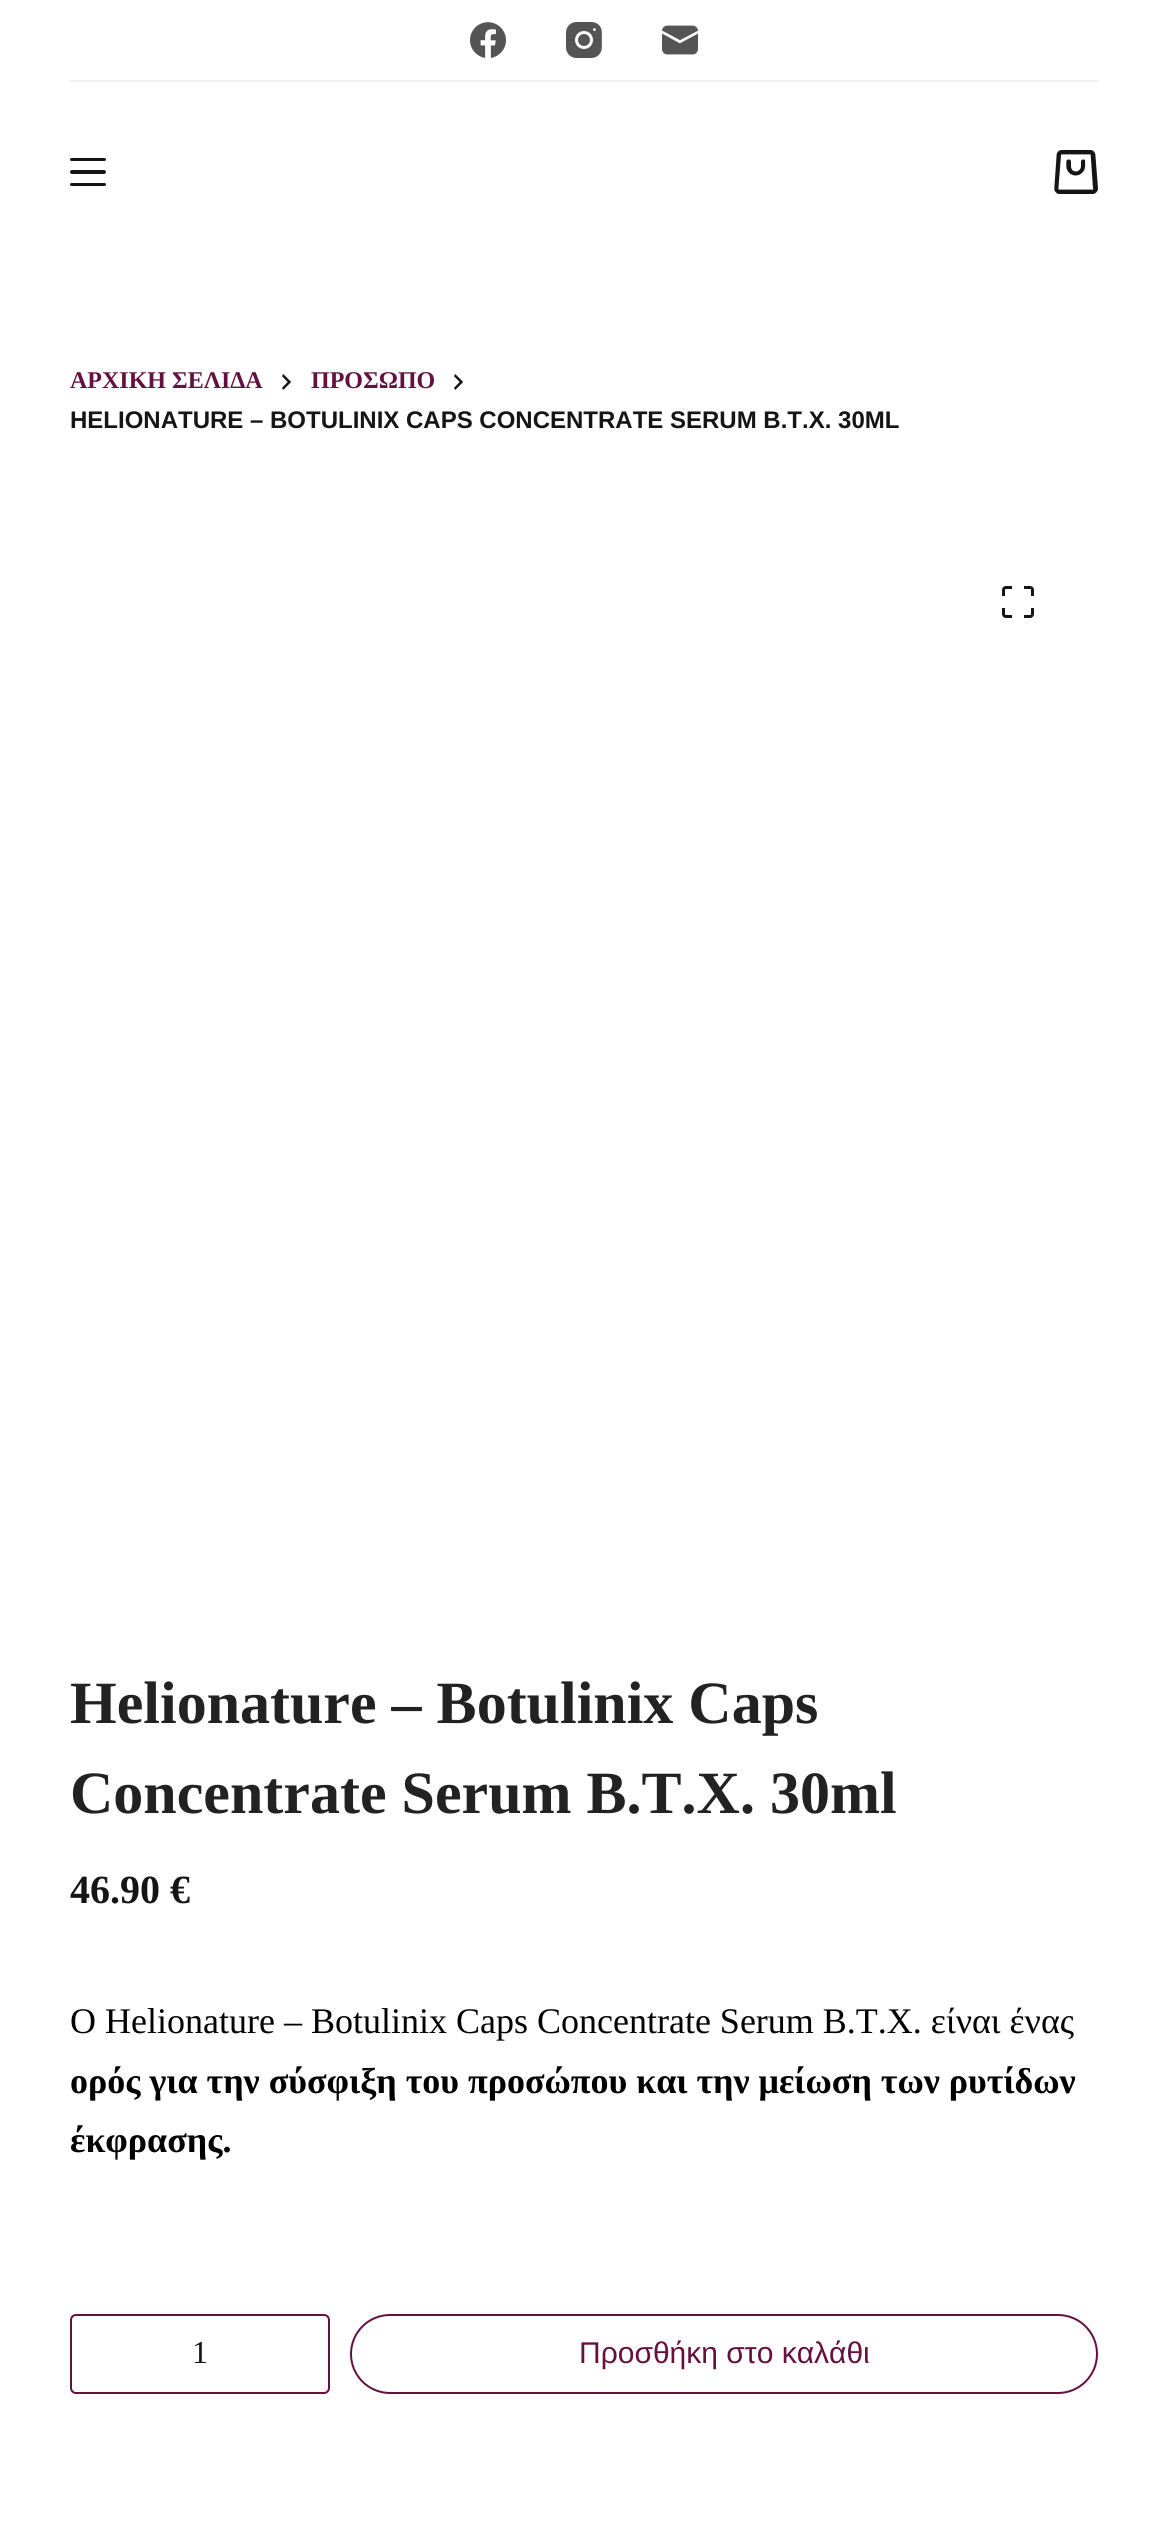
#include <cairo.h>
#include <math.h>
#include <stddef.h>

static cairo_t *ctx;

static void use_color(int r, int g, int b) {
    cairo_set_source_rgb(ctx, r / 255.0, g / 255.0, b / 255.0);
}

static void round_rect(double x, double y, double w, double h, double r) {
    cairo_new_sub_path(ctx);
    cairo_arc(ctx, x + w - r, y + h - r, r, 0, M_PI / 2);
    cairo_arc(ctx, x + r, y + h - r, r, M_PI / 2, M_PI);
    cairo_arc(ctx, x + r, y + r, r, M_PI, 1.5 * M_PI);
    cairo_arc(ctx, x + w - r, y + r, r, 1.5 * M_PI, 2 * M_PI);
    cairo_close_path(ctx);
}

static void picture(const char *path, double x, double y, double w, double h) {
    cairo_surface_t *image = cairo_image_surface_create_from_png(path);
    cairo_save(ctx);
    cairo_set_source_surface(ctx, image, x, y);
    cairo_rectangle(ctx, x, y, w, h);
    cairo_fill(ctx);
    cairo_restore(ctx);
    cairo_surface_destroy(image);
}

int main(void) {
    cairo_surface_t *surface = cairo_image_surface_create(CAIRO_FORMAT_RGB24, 1167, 2527);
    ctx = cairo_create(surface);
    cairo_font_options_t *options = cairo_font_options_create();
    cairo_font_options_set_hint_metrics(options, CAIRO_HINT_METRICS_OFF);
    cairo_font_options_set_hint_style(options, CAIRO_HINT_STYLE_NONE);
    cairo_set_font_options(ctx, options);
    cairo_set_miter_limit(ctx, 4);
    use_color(255, 255, 255);
    cairo_paint(ctx);
    picture("img1.png", 470, 22, 36, 36);
    picture("img2.png", 566, 22, 36, 36);
    picture("img3.png", 662, 25, 36, 30);
    use_color(242, 241, 241);
    cairo_rectangle(ctx, 70, 80, 1028, 2);
    cairo_fill(ctx);
    use_color(21, 21, 21);
    round_rect(70, 158, 36, 3, 1.5);
    cairo_fill(ctx);
    round_rect(70, 170, 36, 4, 2);
    cairo_fill(ctx);
    round_rect(70, 183, 36, 3, 1.5);
    cairo_fill(ctx);
    picture("img4.png", 1054, 150, 44, 44);
    cairo_select_font_face(ctx, "Liberation Serif", CAIRO_FONT_SLANT_NORMAL, CAIRO_FONT_WEIGHT_BOLD);
    cairo_set_font_size(ctx, 24);
    use_color(100, 17, 63);
    cairo_move_to(ctx, 70, 388);
    cairo_show_text(ctx, "ΑΡΧΙΚΗ ΣΕΛΙΔΑ");
    picture("img5.png", 282, 374, 10, 16);
    cairo_move_to(ctx, 311, 388);
    cairo_show_text(ctx, "ΠΡΟΣΩΠΟ");
    picture("img5.png", 454, 374, 10, 16);
    cairo_select_font_face(ctx, "Liberation Sans", CAIRO_FONT_SLANT_NORMAL, CAIRO_FONT_WEIGHT_BOLD);
    use_color(21, 21, 21);
    cairo_move_to(ctx, 70, 428);
    cairo_show_text(ctx, "HELIONATURE – BOTULINIX CAPS CONCENTRATE SERUM Β.T.X. 30ML");
    picture("img6.png", 1002, 586, 32, 32);
    cairo_select_font_face(ctx, "Liberation Serif", CAIRO_FONT_SLANT_NORMAL, CAIRO_FONT_WEIGHT_BOLD);
    cairo_set_font_size(ctx, 60);
    use_color(34, 34, 34);
    cairo_move_to(ctx, 70, 1723);
    cairo_show_text(ctx, "Helionature – Botulinix Caps");
    cairo_move_to(ctx, 70, 1813);
    cairo_show_text(ctx, "Concentrate Serum Β.T.X. 30ml");
    cairo_set_font_size(ctx, 40);
    use_color(21, 21, 21);
    cairo_move_to(ctx, 70, 1903);
    cairo_show_text(ctx, "46.90 €");
    cairo_select_font_face(ctx, "Liberation Serif", CAIRO_FONT_SLANT_NORMAL, CAIRO_FONT_WEIGHT_NORMAL);
    cairo_set_font_size(ctx, 36);
    use_color(0, 0, 0);
    cairo_move_to(ctx, 70, 2033);
    cairo_show_text(ctx, "Ο Helionature – Botulinix Caps Concentrate Serum Β.T.X. είναι ένας");
    cairo_select_font_face(ctx, "Liberation Serif", CAIRO_FONT_SLANT_NORMAL, CAIRO_FONT_WEIGHT_BOLD);
    cairo_move_to(ctx, 70, 2093);
    cairo_show_text(ctx, "ορός για την σύσφιξη του προσώπου και την μείωση των ρυτίδων");
    cairo_move_to(ctx, 70, 2152);
    cairo_show_text(ctx, "έκφρασης.");
    round_rect(71, 2315, 258, 78, 5);
    use_color(100, 17, 63);
    cairo_stroke(ctx);
    cairo_select_font_face(ctx, "Liberation Serif", CAIRO_FONT_SLANT_NORMAL, CAIRO_FONT_WEIGHT_NORMAL);
    cairo_set_font_size(ctx, 32);
    use_color(21, 21, 21);
    cairo_move_to(ctx, 192, 2363);
    cairo_show_text(ctx, "1");
    round_rect(351, 2315, 746, 78, 39);
    use_color(100, 17, 63);
    cairo_stroke(ctx);
    cairo_select_font_face(ctx, "Liberation Sans", CAIRO_FONT_SLANT_NORMAL, CAIRO_FONT_WEIGHT_NORMAL);
    cairo_set_font_size(ctx, 30);
    cairo_move_to(ctx, 579, 2363);
    cairo_show_text(ctx, "Προσθήκη στο καλάθι");
    cairo_surface_write_to_png(surface, "result.png");
    cairo_font_options_destroy(options);
    cairo_destroy(ctx);
    cairo_surface_destroy(surface);
    return 0;
}
